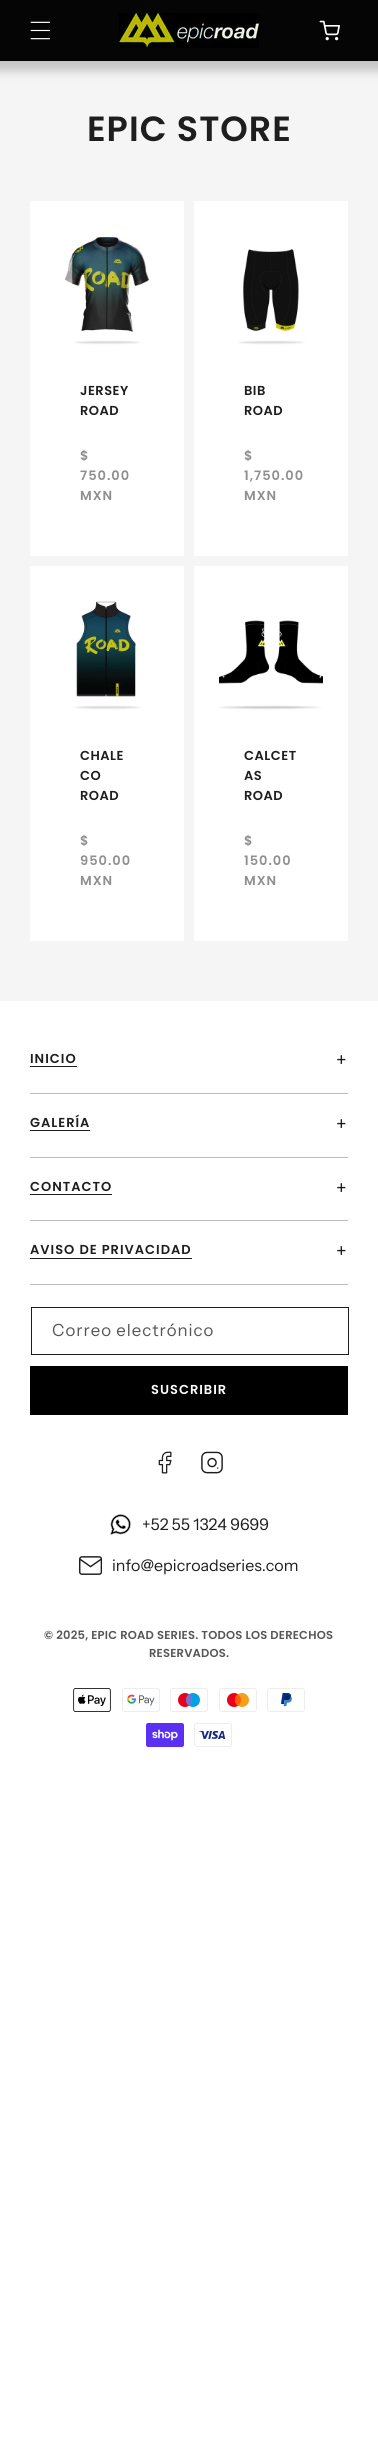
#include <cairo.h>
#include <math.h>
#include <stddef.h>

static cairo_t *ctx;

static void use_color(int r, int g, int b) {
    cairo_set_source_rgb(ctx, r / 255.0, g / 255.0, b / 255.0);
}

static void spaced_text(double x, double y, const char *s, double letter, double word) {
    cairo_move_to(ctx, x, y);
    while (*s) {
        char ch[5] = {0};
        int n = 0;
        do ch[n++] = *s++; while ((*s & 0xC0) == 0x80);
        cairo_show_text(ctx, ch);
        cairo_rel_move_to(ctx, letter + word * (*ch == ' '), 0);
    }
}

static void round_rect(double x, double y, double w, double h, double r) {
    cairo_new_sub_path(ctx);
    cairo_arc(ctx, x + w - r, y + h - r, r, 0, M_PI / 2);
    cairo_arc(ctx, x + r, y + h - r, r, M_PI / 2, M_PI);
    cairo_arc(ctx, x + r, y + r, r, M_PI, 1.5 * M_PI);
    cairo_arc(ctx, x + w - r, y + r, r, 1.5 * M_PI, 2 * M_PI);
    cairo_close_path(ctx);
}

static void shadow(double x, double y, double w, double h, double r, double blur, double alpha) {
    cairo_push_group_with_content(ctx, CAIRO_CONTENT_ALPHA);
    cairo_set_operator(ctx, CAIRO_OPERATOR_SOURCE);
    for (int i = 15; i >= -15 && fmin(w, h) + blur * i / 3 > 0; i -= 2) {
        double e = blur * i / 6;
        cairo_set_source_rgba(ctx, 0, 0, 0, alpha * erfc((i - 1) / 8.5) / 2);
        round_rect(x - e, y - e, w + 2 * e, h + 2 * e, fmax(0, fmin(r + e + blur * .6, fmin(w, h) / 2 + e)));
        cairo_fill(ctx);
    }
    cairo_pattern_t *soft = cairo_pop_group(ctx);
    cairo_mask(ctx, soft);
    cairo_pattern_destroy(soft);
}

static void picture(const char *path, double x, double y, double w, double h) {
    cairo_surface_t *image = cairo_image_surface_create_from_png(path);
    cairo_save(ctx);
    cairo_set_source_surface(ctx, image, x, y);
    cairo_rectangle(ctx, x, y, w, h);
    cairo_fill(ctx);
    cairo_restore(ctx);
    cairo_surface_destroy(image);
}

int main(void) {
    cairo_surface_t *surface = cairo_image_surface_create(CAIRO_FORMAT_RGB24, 378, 2456);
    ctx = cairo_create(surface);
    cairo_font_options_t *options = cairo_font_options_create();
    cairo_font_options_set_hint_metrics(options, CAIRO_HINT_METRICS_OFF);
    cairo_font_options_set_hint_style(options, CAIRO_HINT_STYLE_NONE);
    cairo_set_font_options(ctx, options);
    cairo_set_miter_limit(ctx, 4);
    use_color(255, 255, 255);
    cairo_paint(ctx);
    use_color(245, 245, 245);
    cairo_rectangle(ctx, 0, 61, 378, 940);
    cairo_fill(ctx);
    use_color(0, 0, 0);
    shadow(-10, -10, 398, 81, 0, 5, 0.2);
    use_color(5, 5, 5);
    cairo_rectangle(ctx, 0, 0, 378, 61);
    cairo_fill(ctx);
    picture("img1.png", 30, 21, 20, 19);
    picture("img2.png", 119, 13, 140, 35);
    picture("img3.png", 319, 20, 21, 21);
    cairo_select_font_face(ctx, "Poppins SemiBold", CAIRO_FONT_SLANT_NORMAL, CAIRO_FONT_WEIGHT_NORMAL);
    cairo_set_font_size(ctx, 35);
    use_color(30, 30, 30);
    spaced_text(87, 141, "EPIC STORE", 1, 0);
    use_color(255, 255, 255);
    cairo_rectangle(ctx, 30, 201, 154, 355);
    cairo_fill(ctx);
    picture("img4.png", 55, 226, 104, 130);
    cairo_set_font_size(ctx, 13);
    use_color(30, 30, 30);
    spaced_text(80, 395, "JERSEY", 0.5, 0);
    spaced_text(80, 415, "ROAD", 0.5, 0);
    use_color(143, 143, 143);
    spaced_text(80, 460, "$", 1, 0);
    spaced_text(80, 480, "750.00", 1, 0);
    spaced_text(80, 500, "MXN", 1, 0);
    use_color(255, 255, 255);
    cairo_rectangle(ctx, 194, 201, 154, 355);
    cairo_fill(ctx);
    picture("img5.png", 219, 226, 104, 130);
    use_color(30, 30, 30);
    spaced_text(244, 395, "BIB", 0.5, 0);
    spaced_text(244, 415, "ROAD", 0.5, 0);
    use_color(143, 143, 143);
    spaced_text(244, 460, "$", 1, 0);
    spaced_text(244, 480, "1,750.00", 1, 0);
    spaced_text(244, 500, "MXN", 1, 0);
    use_color(255, 255, 255);
    cairo_rectangle(ctx, 30, 566, 154, 375);
    cairo_fill(ctx);
    picture("img6.png", 55, 591, 104, 130);
    use_color(30, 30, 30);
    spaced_text(80, 760, "CHALE", 0.5, 0);
    spaced_text(80, 780, "CO", 0.5, 0);
    spaced_text(80, 800, "ROAD", 0.5, 0);
    use_color(143, 143, 143);
    spaced_text(80, 845, "$", 1, 0);
    spaced_text(80, 865, "950.00", 1, 0);
    spaced_text(80, 885, "MXN", 1, 0);
    use_color(255, 255, 255);
    cairo_rectangle(ctx, 194, 566, 154, 375);
    cairo_fill(ctx);
    picture("img7.png", 219, 591, 104, 130);
    use_color(30, 30, 30);
    spaced_text(244, 760, "CALCET", 0.5, 0);
    spaced_text(244, 780, "AS", 0.5, 0);
    spaced_text(244, 800, "ROAD", 0.5, 0);
    use_color(143, 143, 143);
    spaced_text(244, 845, "$", 1, 0);
    spaced_text(244, 865, "150.00", 1, 0);
    spaced_text(244, 885, "MXN", 1, 0);
    use_color(187, 187, 187);
    cairo_rectangle(ctx, 30, 1093, 318, 1);
    cairo_fill(ctx);
    use_color(30, 30, 30);
    spaced_text(30, 1063, "INICIO", 1, 0);
    cairo_rectangle(ctx, 30, 1066, 47, 1);
    cairo_fill(ctx);
    cairo_select_font_face(ctx, "Instrument Sans", CAIRO_FONT_SLANT_NORMAL, CAIRO_FONT_WEIGHT_NORMAL);
    cairo_set_font_size(ctx, 20);
    spaced_text(336, 1067, "+", 1, 0);
    use_color(187, 187, 187);
    cairo_rectangle(ctx, 30, 1157, 318, 1);
    cairo_fill(ctx);
    cairo_select_font_face(ctx, "Poppins SemiBold", CAIRO_FONT_SLANT_NORMAL, CAIRO_FONT_WEIGHT_NORMAL);
    cairo_set_font_size(ctx, 13);
    use_color(30, 30, 30);
    spaced_text(30, 1127, "GALERÍA", 1, 0);
    cairo_rectangle(ctx, 30, 1130, 60, 1);
    cairo_fill(ctx);
    cairo_select_font_face(ctx, "Instrument Sans", CAIRO_FONT_SLANT_NORMAL, CAIRO_FONT_WEIGHT_NORMAL);
    cairo_set_font_size(ctx, 20);
    spaced_text(336, 1131, "+", 1, 0);
    use_color(187, 187, 187);
    cairo_rectangle(ctx, 30, 1220, 318, 1);
    cairo_fill(ctx);
    cairo_select_font_face(ctx, "Poppins SemiBold", CAIRO_FONT_SLANT_NORMAL, CAIRO_FONT_WEIGHT_NORMAL);
    cairo_set_font_size(ctx, 13);
    use_color(30, 30, 30);
    spaced_text(30, 1191, "CONTACTO", 1, 0);
    cairo_rectangle(ctx, 30, 1194, 82, 1);
    cairo_fill(ctx);
    cairo_select_font_face(ctx, "Instrument Sans", CAIRO_FONT_SLANT_NORMAL, CAIRO_FONT_WEIGHT_NORMAL);
    cairo_set_font_size(ctx, 20);
    spaced_text(336, 1195, "+", 1, 0);
    use_color(187, 187, 187);
    cairo_rectangle(ctx, 30, 1284, 318, 1);
    cairo_fill(ctx);
    cairo_select_font_face(ctx, "Poppins SemiBold", CAIRO_FONT_SLANT_NORMAL, CAIRO_FONT_WEIGHT_NORMAL);
    cairo_set_font_size(ctx, 13);
    use_color(30, 30, 30);
    spaced_text(30, 1254, "AVISO DE PRIVACIDAD", 1, 0);
    cairo_rectangle(ctx, 30, 1258, 162, 1);
    cairo_fill(ctx);
    cairo_select_font_face(ctx, "Instrument Sans", CAIRO_FONT_SLANT_NORMAL, CAIRO_FONT_WEIGHT_NORMAL);
    cairo_set_font_size(ctx, 20);
    spaced_text(336, 1258, "+", 1, 0);
    cairo_rectangle(ctx, 31.5, 1307.5, 317, 47);
    cairo_set_line_width(ctx, 1);
    cairo_stroke(ctx);
    cairo_set_font_size(ctx, 16.75);
    use_color(86, 86, 86);
    spaced_text(52, 1336, "Correo electrónico", 1, 0);
    use_color(0, 0, 0);
    cairo_rectangle(ctx, 30, 1366, 318, 49);
    cairo_fill(ctx);
    cairo_select_font_face(ctx, "Poppins SemiBold", CAIRO_FONT_SLANT_NORMAL, CAIRO_FONT_WEIGHT_NORMAL);
    cairo_set_font_size(ctx, 13);
    use_color(255, 255, 255);
    spaced_text(151, 1394, "SUSCRIBIR", 1, 0);
    picture("img8.png", 158, 1451, 14, 23);
    picture("img9.png", 201, 1451, 22, 23);
    picture("img10.png", 110, 1514, 21, 21);
    cairo_select_font_face(ctx, "Instrument Sans", CAIRO_FONT_SLANT_NORMAL, CAIRO_FONT_WEIGHT_NORMAL);
    cairo_set_font_size(ctx, 16);
    use_color(30, 30, 30);
    cairo_move_to(ctx, 142, 1530);
    cairo_show_text(ctx, "+52 55 1324 9699");
    picture("img11.png", 79, 1556, 23, 19);
    cairo_move_to(ctx, 112, 1571);
    cairo_show_text(ctx, "info@epicroadseries.com");
    cairo_select_font_face(ctx, "Poppins SemiBold", CAIRO_FONT_SLANT_NORMAL, CAIRO_FONT_WEIGHT_NORMAL);
    cairo_set_font_size(ctx, 11.55);
    use_color(86, 86, 86);
    spaced_text(44, 1639, "© 2025, EPIC ROAD SERIES. TODOS LOS DERECHOS", 0.2, 0);
    spaced_text(149, 1657, "RESERVADOS.", 0.2, 0);
    picture("img12.png", 73, 1688, 38, 24);
    picture("img13.png", 122, 1688, 38, 24);
    picture("img14.png", 170, 1688, 38, 24);
    picture("img15.png", 219, 1688, 38, 24);
    picture("img16.png", 267, 1688, 38, 24);
    picture("img17.png", 146, 1723, 38, 24);
    picture("img18.png", 194, 1723, 38, 24);
    cairo_surface_write_to_png(surface, "result.png");
    cairo_font_options_destroy(options);
    cairo_destroy(ctx);
    cairo_surface_destroy(surface);
    return 0;
}
